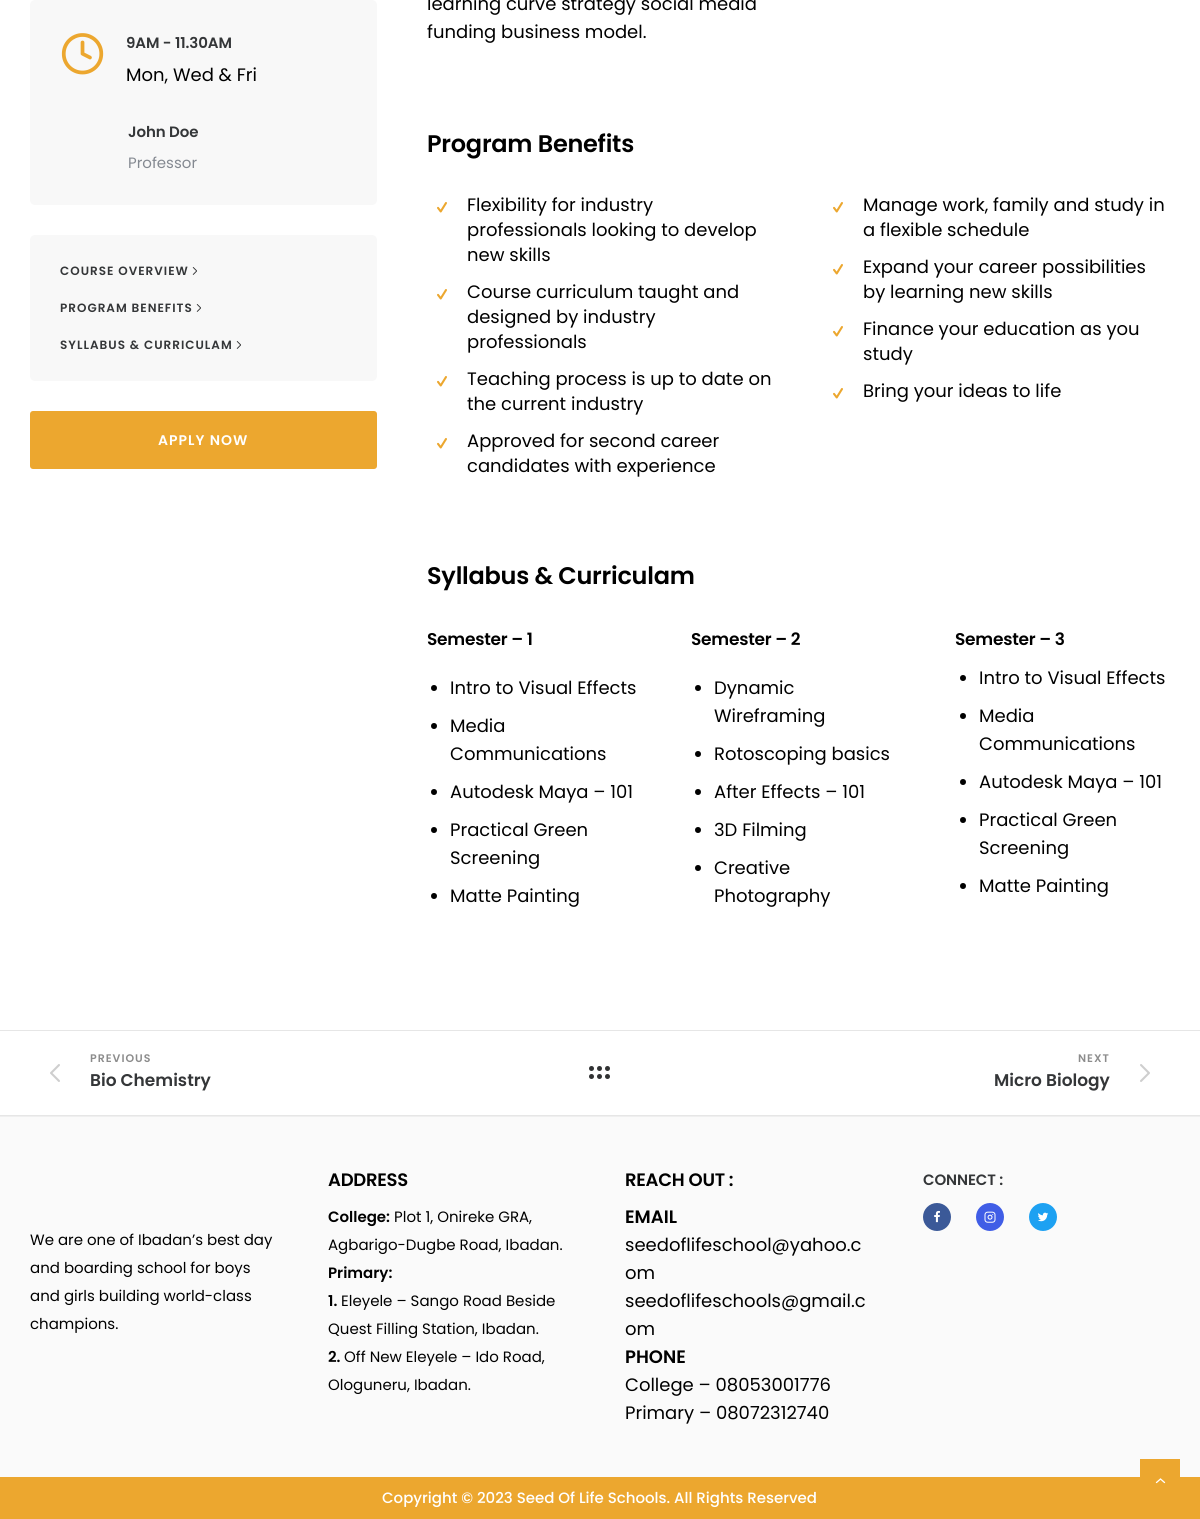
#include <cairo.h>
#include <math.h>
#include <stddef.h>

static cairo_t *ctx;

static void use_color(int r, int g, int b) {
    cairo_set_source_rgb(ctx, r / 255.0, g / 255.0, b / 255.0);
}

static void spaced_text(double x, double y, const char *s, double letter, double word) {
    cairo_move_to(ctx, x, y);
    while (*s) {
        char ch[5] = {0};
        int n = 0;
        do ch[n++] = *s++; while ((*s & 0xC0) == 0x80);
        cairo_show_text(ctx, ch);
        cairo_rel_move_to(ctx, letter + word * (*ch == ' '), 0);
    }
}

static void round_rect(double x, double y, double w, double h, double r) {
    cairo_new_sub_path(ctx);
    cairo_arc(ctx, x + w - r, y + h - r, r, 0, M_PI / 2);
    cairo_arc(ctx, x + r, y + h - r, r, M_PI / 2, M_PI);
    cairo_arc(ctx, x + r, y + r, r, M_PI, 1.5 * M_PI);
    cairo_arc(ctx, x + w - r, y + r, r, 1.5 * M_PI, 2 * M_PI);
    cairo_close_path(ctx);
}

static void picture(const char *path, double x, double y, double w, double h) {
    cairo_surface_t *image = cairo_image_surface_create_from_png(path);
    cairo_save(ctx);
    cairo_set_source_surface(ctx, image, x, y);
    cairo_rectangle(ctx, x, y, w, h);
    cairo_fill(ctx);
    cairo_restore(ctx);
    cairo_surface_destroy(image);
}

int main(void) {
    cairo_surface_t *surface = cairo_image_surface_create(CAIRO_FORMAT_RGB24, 1200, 1519);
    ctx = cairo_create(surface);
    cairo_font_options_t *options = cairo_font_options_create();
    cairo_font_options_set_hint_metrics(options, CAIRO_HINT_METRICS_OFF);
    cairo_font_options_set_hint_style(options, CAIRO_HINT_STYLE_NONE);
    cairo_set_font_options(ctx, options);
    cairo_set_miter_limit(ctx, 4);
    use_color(255, 255, 255);
    cairo_paint(ctx);
    use_color(248, 248, 248);
    round_rect(30, 0, 347, 205, 5);
    cairo_fill(ctx);
    picture("img1.png", 61, 33, 43, 42);
    cairo_select_font_face(ctx, "Poppins SemiBold", CAIRO_FONT_SLANT_NORMAL, CAIRO_FONT_WEIGHT_NORMAL);
    cairo_set_font_size(ctx, 15);
    use_color(52, 54, 56);
    spaced_text(126, 48, "9AM - 11.30AM", -0.1, 0);
    cairo_select_font_face(ctx, "Poppins", CAIRO_FONT_SLANT_NORMAL, CAIRO_FONT_WEIGHT_NORMAL);
    cairo_set_font_size(ctx, 18);
    use_color(0, 0, 0);
    cairo_move_to(ctx, 126, 81);
    cairo_show_text(ctx, "Mon, Wed & Fri");
    cairo_select_font_face(ctx, "Poppins SemiBold", CAIRO_FONT_SLANT_NORMAL, CAIRO_FONT_WEIGHT_NORMAL);
    cairo_set_font_size(ctx, 15);
    use_color(52, 54, 56);
    spaced_text(128, 137, "John Doe", -0.1, 0);
    cairo_select_font_face(ctx, "Poppins", CAIRO_FONT_SLANT_NORMAL, CAIRO_FONT_WEIGHT_NORMAL);
    use_color(132, 137, 145);
    cairo_move_to(ctx, 128, 168);
    cairo_show_text(ctx, "Professor");
    use_color(248, 248, 248);
    round_rect(30, 235, 347, 146, 5);
    cairo_fill(ctx);
    cairo_select_font_face(ctx, "Poppins SemiBold", CAIRO_FONT_SLANT_NORMAL, CAIRO_FONT_WEIGHT_NORMAL);
    cairo_set_font_size(ctx, 12);
    use_color(52, 54, 56);
    spaced_text(60, 275, "COURSE OVERVIEW", 1, 0);
    picture("img2.png", 192, 267, 5, 8);
    spaced_text(60, 312, "PROGRAM BENEFITS", 1, 0);
    picture("img2.png", 196, 304, 5, 8);
    spaced_text(60, 349, "SYLLABUS & CURRICULAM", 1, 0);
    picture("img2.png", 236, 341, 5, 8);
    use_color(236, 167, 47);
    round_rect(30, 411, 347, 58, 3);
    cairo_fill(ctx);
    cairo_set_font_size(ctx, 14);
    use_color(255, 255, 255);
    spaced_text(158, 445, "APPLY NOW", 1, 0);
    cairo_select_font_face(ctx, "Poppins", CAIRO_FONT_SLANT_NORMAL, CAIRO_FONT_WEIGHT_NORMAL);
    cairo_set_font_size(ctx, 18);
    use_color(0, 0, 0);
    cairo_move_to(ctx, 427, 10);
    cairo_show_text(ctx, "learning curve strategy social media");
    cairo_move_to(ctx, 427, 38);
    cairo_show_text(ctx, "funding business model.");
    cairo_select_font_face(ctx, "Poppins SemiBold", CAIRO_FONT_SLANT_NORMAL, CAIRO_FONT_WEIGHT_NORMAL);
    cairo_set_font_size(ctx, 24);
    spaced_text(427, 152, "Program Benefits", -0.25, 0);
    picture("img3.png", 437, 202, 10, 11);
    cairo_select_font_face(ctx, "Poppins", CAIRO_FONT_SLANT_NORMAL, CAIRO_FONT_WEIGHT_NORMAL);
    cairo_set_font_size(ctx, 18);
    cairo_move_to(ctx, 467, 211);
    cairo_show_text(ctx, "Flexibility for industry");
    cairo_move_to(ctx, 467, 236);
    cairo_show_text(ctx, "professionals looking to develop");
    cairo_move_to(ctx, 467, 261);
    cairo_show_text(ctx, "new skills");
    picture("img3.png", 437, 289, 10, 11);
    cairo_move_to(ctx, 467, 298);
    cairo_show_text(ctx, "Course curriculum taught and");
    cairo_move_to(ctx, 467, 323);
    cairo_show_text(ctx, "designed by industry");
    cairo_move_to(ctx, 467, 348);
    cairo_show_text(ctx, "professionals");
    picture("img3.png", 437, 376, 10, 11);
    cairo_move_to(ctx, 467, 385);
    cairo_show_text(ctx, "Teaching process is up to date on");
    cairo_move_to(ctx, 467, 410);
    cairo_show_text(ctx, "the current industry");
    picture("img3.png", 437, 438, 10, 11);
    cairo_move_to(ctx, 467, 447);
    cairo_show_text(ctx, "Approved for second career");
    cairo_move_to(ctx, 467, 472);
    cairo_show_text(ctx, "candidates with experience");
    picture("img3.png", 833, 202, 10, 11);
    cairo_move_to(ctx, 863, 211);
    cairo_show_text(ctx, "Manage work, family and study in");
    cairo_move_to(ctx, 863, 236);
    cairo_show_text(ctx, "a flexible schedule");
    picture("img3.png", 833, 264, 10, 11);
    cairo_move_to(ctx, 863, 273);
    cairo_show_text(ctx, "Expand your career possibilities");
    cairo_move_to(ctx, 863, 298);
    cairo_show_text(ctx, "by learning new skills");
    picture("img3.png", 833, 326, 10, 11);
    cairo_move_to(ctx, 863, 335);
    cairo_show_text(ctx, "Finance your education as you");
    cairo_move_to(ctx, 863, 360);
    cairo_show_text(ctx, "study");
    picture("img3.png", 833, 388, 10, 11);
    cairo_move_to(ctx, 863, 397);
    cairo_show_text(ctx, "Bring your ideas to life");
    cairo_select_font_face(ctx, "Poppins SemiBold", CAIRO_FONT_SLANT_NORMAL, CAIRO_FONT_WEIGHT_NORMAL);
    cairo_set_font_size(ctx, 24);
    spaced_text(427, 584, "Syllabus & Curriculam", -0.25, 0);
    cairo_set_font_size(ctx, 17);
    spaced_text(427, 645, "Semester – 1", -0.25, 0);
    cairo_new_path(ctx);
    cairo_arc(ctx, 434, 688, 3, 0, 2 * M_PI);
    cairo_fill(ctx);
    cairo_select_font_face(ctx, "Poppins", CAIRO_FONT_SLANT_NORMAL, CAIRO_FONT_WEIGHT_NORMAL);
    cairo_set_font_size(ctx, 18);
    cairo_move_to(ctx, 450, 694);
    cairo_show_text(ctx, "Intro to Visual Effects");
    cairo_new_path(ctx);
    cairo_arc(ctx, 434, 726, 3, 0, 2 * M_PI);
    cairo_fill(ctx);
    cairo_move_to(ctx, 450, 732);
    cairo_show_text(ctx, "Media");
    cairo_move_to(ctx, 450, 760);
    cairo_show_text(ctx, "Communications");
    cairo_new_path(ctx);
    cairo_arc(ctx, 434, 792, 3, 0, 2 * M_PI);
    cairo_fill(ctx);
    cairo_move_to(ctx, 450, 798);
    cairo_show_text(ctx, "Autodesk Maya – 101");
    cairo_new_path(ctx);
    cairo_arc(ctx, 434, 830, 3, 0, 2 * M_PI);
    cairo_fill(ctx);
    cairo_move_to(ctx, 450, 836);
    cairo_show_text(ctx, "Practical Green");
    cairo_move_to(ctx, 450, 864);
    cairo_show_text(ctx, "Screening");
    cairo_new_path(ctx);
    cairo_arc(ctx, 434, 896, 3, 0, 2 * M_PI);
    cairo_fill(ctx);
    cairo_move_to(ctx, 450, 902);
    cairo_show_text(ctx, "Matte Painting");
    cairo_select_font_face(ctx, "Poppins SemiBold", CAIRO_FONT_SLANT_NORMAL, CAIRO_FONT_WEIGHT_NORMAL);
    cairo_set_font_size(ctx, 17);
    spaced_text(691, 645, "Semester – 2", -0.25, 0);
    cairo_new_path(ctx);
    cairo_arc(ctx, 698, 688, 3, 0, 2 * M_PI);
    cairo_fill(ctx);
    cairo_select_font_face(ctx, "Poppins", CAIRO_FONT_SLANT_NORMAL, CAIRO_FONT_WEIGHT_NORMAL);
    cairo_set_font_size(ctx, 18);
    cairo_move_to(ctx, 714, 694);
    cairo_show_text(ctx, "Dynamic");
    cairo_move_to(ctx, 714, 722);
    cairo_show_text(ctx, "Wireframing");
    cairo_new_path(ctx);
    cairo_arc(ctx, 698, 754, 3, 0, 2 * M_PI);
    cairo_fill(ctx);
    cairo_move_to(ctx, 714, 760);
    cairo_show_text(ctx, "Rotoscoping basics");
    cairo_new_path(ctx);
    cairo_arc(ctx, 698, 792, 3, 0, 2 * M_PI);
    cairo_fill(ctx);
    cairo_move_to(ctx, 714, 798);
    cairo_show_text(ctx, "After Effects – 101");
    cairo_new_path(ctx);
    cairo_arc(ctx, 698, 830, 3, 0, 2 * M_PI);
    cairo_fill(ctx);
    cairo_move_to(ctx, 714, 836);
    cairo_show_text(ctx, "3D Filming");
    cairo_new_path(ctx);
    cairo_arc(ctx, 698, 868, 3, 0, 2 * M_PI);
    cairo_fill(ctx);
    cairo_move_to(ctx, 714, 874);
    cairo_show_text(ctx, "Creative");
    cairo_move_to(ctx, 714, 902);
    cairo_show_text(ctx, "Photography");
    cairo_select_font_face(ctx, "Poppins SemiBold", CAIRO_FONT_SLANT_NORMAL, CAIRO_FONT_WEIGHT_NORMAL);
    cairo_set_font_size(ctx, 17);
    spaced_text(955, 645, "Semester – 3", -0.25, 0);
    cairo_new_path(ctx);
    cairo_arc(ctx, 963, 678, 3, 0, 2 * M_PI);
    cairo_fill(ctx);
    cairo_select_font_face(ctx, "Poppins", CAIRO_FONT_SLANT_NORMAL, CAIRO_FONT_WEIGHT_NORMAL);
    cairo_set_font_size(ctx, 18);
    cairo_move_to(ctx, 979, 684);
    cairo_show_text(ctx, "Intro to Visual Effects");
    cairo_new_path(ctx);
    cairo_arc(ctx, 963, 716, 3, 0, 2 * M_PI);
    cairo_fill(ctx);
    cairo_move_to(ctx, 979, 722);
    cairo_show_text(ctx, "Media");
    cairo_move_to(ctx, 979, 750);
    cairo_show_text(ctx, "Communications");
    cairo_new_path(ctx);
    cairo_arc(ctx, 963, 782, 3, 0, 2 * M_PI);
    cairo_fill(ctx);
    cairo_move_to(ctx, 979, 788);
    cairo_show_text(ctx, "Autodesk Maya – 101");
    cairo_new_path(ctx);
    cairo_arc(ctx, 963, 820, 3, 0, 2 * M_PI);
    cairo_fill(ctx);
    cairo_move_to(ctx, 979, 826);
    cairo_show_text(ctx, "Practical Green");
    cairo_move_to(ctx, 979, 854);
    cairo_show_text(ctx, "Screening");
    cairo_new_path(ctx);
    cairo_arc(ctx, 963, 886, 3, 0, 2 * M_PI);
    cairo_fill(ctx);
    cairo_move_to(ctx, 979, 892);
    cairo_show_text(ctx, "Matte Painting");
    use_color(230, 230, 230);
    cairo_rectangle(ctx, 0, 1030, 1200, 1);
    cairo_fill(ctx);
    cairo_rectangle(ctx, 0, 1115, 1200, 1);
    cairo_fill(ctx);
    picture("img4.png", 50, 1064, 10, 18);
    cairo_select_font_face(ctx, "Poppins SemiBold", CAIRO_FONT_SLANT_NORMAL, CAIRO_FONT_WEIGHT_NORMAL);
    cairo_set_font_size(ctx, 11);
    use_color(140, 140, 140);
    spaced_text(90, 1062, "PREVIOUS", 1, 0);
    cairo_set_font_size(ctx, 17);
    use_color(52, 54, 56);
    cairo_move_to(ctx, 90, 1086);
    cairo_show_text(ctx, "Bio Chemistry");
    use_color(49, 50, 51);
    cairo_new_path(ctx);
    cairo_arc(ctx, 591.5, 1068.5, 2.5, 0, 2 * M_PI);
    cairo_fill(ctx);
    cairo_arc(ctx, 599.5, 1068.5, 2.5, 0, 2 * M_PI);
    cairo_fill(ctx);
    cairo_arc(ctx, 607.5, 1068.5, 2.5, 0, 2 * M_PI);
    cairo_fill(ctx);
    cairo_arc(ctx, 591.5, 1076.5, 2.5, 0, 2 * M_PI);
    cairo_fill(ctx);
    cairo_arc(ctx, 599.5, 1076.5, 2.5, 0, 2 * M_PI);
    cairo_fill(ctx);
    cairo_arc(ctx, 607.5, 1076.5, 2.5, 0, 2 * M_PI);
    cairo_fill(ctx);
    cairo_set_font_size(ctx, 11);
    use_color(140, 140, 140);
    spaced_text(1078, 1062, "NEXT", 1, 0);
    cairo_set_font_size(ctx, 17);
    use_color(52, 54, 56);
    cairo_move_to(ctx, 994, 1086);
    cairo_show_text(ctx, "Micro Biology");
    picture("img5.png", 1140, 1064, 10, 18);
    use_color(250, 250, 250);
    cairo_rectangle(ctx, 0, 1117, 1200, 360);
    cairo_fill(ctx);
    use_color(239, 239, 239);
    cairo_rectangle(ctx, 0, 1116, 1200, 1);
    cairo_fill(ctx);
    cairo_set_font_size(ctx, 18);
    use_color(0, 0, 0);
    spaced_text(328, 1186, "ADDRESS", -0.25, 0);
    cairo_set_font_size(ctx, 15);
    cairo_move_to(ctx, 328, 1222);
    cairo_show_text(ctx, "College:");
    cairo_select_font_face(ctx, "Poppins", CAIRO_FONT_SLANT_NORMAL, CAIRO_FONT_WEIGHT_NORMAL);
    cairo_move_to(ctx, 394, 1222);
    cairo_show_text(ctx, "Plot 1, Onireke GRA,");
    cairo_move_to(ctx, 328, 1250);
    cairo_show_text(ctx, "Agbarigo-Dugbe Road, Ibadan.");
    cairo_select_font_face(ctx, "Poppins SemiBold", CAIRO_FONT_SLANT_NORMAL, CAIRO_FONT_WEIGHT_NORMAL);
    cairo_move_to(ctx, 328, 1278);
    cairo_show_text(ctx, "Primary:");
    cairo_move_to(ctx, 328, 1306);
    cairo_show_text(ctx, "1.");
    cairo_select_font_face(ctx, "Poppins", CAIRO_FONT_SLANT_NORMAL, CAIRO_FONT_WEIGHT_NORMAL);
    cairo_move_to(ctx, 341, 1306);
    cairo_show_text(ctx, "Eleyele – Sango Road Beside");
    cairo_move_to(ctx, 328, 1334);
    cairo_show_text(ctx, "Quest Filling Station, Ibadan.");
    cairo_select_font_face(ctx, "Poppins SemiBold", CAIRO_FONT_SLANT_NORMAL, CAIRO_FONT_WEIGHT_NORMAL);
    cairo_move_to(ctx, 328, 1362);
    cairo_show_text(ctx, "2.");
    cairo_select_font_face(ctx, "Poppins", CAIRO_FONT_SLANT_NORMAL, CAIRO_FONT_WEIGHT_NORMAL);
    cairo_move_to(ctx, 344, 1362);
    cairo_show_text(ctx, "Off New Eleyele – Ido Road,");
    cairo_move_to(ctx, 328, 1390);
    cairo_show_text(ctx, "Ologuneru, Ibadan.");
    cairo_select_font_face(ctx, "Poppins SemiBold", CAIRO_FONT_SLANT_NORMAL, CAIRO_FONT_WEIGHT_NORMAL);
    cairo_set_font_size(ctx, 18);
    spaced_text(625, 1186, "REACH OUT :", -0.25, 0);
    cairo_move_to(ctx, 625, 1223);
    cairo_show_text(ctx, "EMAIL");
    cairo_select_font_face(ctx, "Poppins", CAIRO_FONT_SLANT_NORMAL, CAIRO_FONT_WEIGHT_NORMAL);
    cairo_move_to(ctx, 625, 1251);
    cairo_show_text(ctx, "seedoflifeschool@yahoo.c");
    cairo_move_to(ctx, 625, 1279);
    cairo_show_text(ctx, "om");
    cairo_move_to(ctx, 625, 1307);
    cairo_show_text(ctx, "seedoflifeschools@gmail.c");
    cairo_move_to(ctx, 625, 1335);
    cairo_show_text(ctx, "om");
    cairo_select_font_face(ctx, "Poppins SemiBold", CAIRO_FONT_SLANT_NORMAL, CAIRO_FONT_WEIGHT_NORMAL);
    cairo_move_to(ctx, 625, 1363);
    cairo_show_text(ctx, "PHONE");
    cairo_select_font_face(ctx, "Poppins", CAIRO_FONT_SLANT_NORMAL, CAIRO_FONT_WEIGHT_NORMAL);
    cairo_move_to(ctx, 625, 1391);
    cairo_show_text(ctx, "College – 08053001776");
    cairo_move_to(ctx, 625, 1419);
    cairo_show_text(ctx, "Primary – 08072312740");
    cairo_select_font_face(ctx, "Poppins SemiBold", CAIRO_FONT_SLANT_NORMAL, CAIRO_FONT_WEIGHT_NORMAL);
    cairo_set_font_size(ctx, 15);
    use_color(52, 54, 56);
    spaced_text(923, 1185, "CONNECT :", -0.1, 0);
    use_color(59, 89, 152);
    cairo_new_path(ctx);
    cairo_arc(ctx, 937, 1217, 14, 0, 2 * M_PI);
    cairo_fill(ctx);
    picture("img6.png", 934, 1210, 6, 13);
    use_color(64, 93, 230);
    cairo_arc(ctx, 990, 1217, 14, 0, 2 * M_PI);
    cairo_fill(ctx);
    picture("img7.png", 984, 1211, 12, 12);
    use_color(29, 161, 242);
    cairo_arc(ctx, 1043, 1217, 14, 0, 2 * M_PI);
    cairo_fill(ctx);
    picture("img8.png", 1038, 1212, 11, 10);
    cairo_select_font_face(ctx, "Poppins", CAIRO_FONT_SLANT_NORMAL, CAIRO_FONT_WEIGHT_NORMAL);
    use_color(0, 0, 0);
    cairo_move_to(ctx, 30, 1245);
    cairo_show_text(ctx, "We are one of Ibadan’s best day");
    cairo_move_to(ctx, 30, 1273);
    cairo_show_text(ctx, "and boarding school for boys");
    cairo_move_to(ctx, 30, 1301);
    cairo_show_text(ctx, "and girls building world-class");
    cairo_move_to(ctx, 30, 1329);
    cairo_show_text(ctx, "champions.");
    use_color(236, 167, 47);
    cairo_rectangle(ctx, 0, 1477, 1200, 42);
    cairo_fill(ctx);
    cairo_select_font_face(ctx, "Poppins Medium", CAIRO_FONT_SLANT_NORMAL, CAIRO_FONT_WEIGHT_NORMAL);
    use_color(255, 255, 255);
    cairo_move_to(ctx, 382, 1503);
    cairo_show_text(ctx, "Copyright © 2023 Seed Of Life Schools. All Rights Reserved");
    use_color(236, 167, 47);
    cairo_rectangle(ctx, 1140, 1459, 40, 18);
    cairo_fill(ctx);
    cairo_new_path(ctx);
    cairo_move_to(ctx, 1164.5, 1482.5);
    cairo_line_to(ctx, 1160.5, 1479);
    cairo_line_to(ctx, 1156.5, 1482.5);
    use_color(255, 255, 255);
    cairo_set_line_width(ctx, 1.3);
    cairo_set_line_cap(ctx, CAIRO_LINE_CAP_ROUND);
    cairo_stroke(ctx);
    cairo_surface_write_to_png(surface, "result.png");
    cairo_font_options_destroy(options);
    cairo_destroy(ctx);
    cairo_surface_destroy(surface);
    return 0;
}
